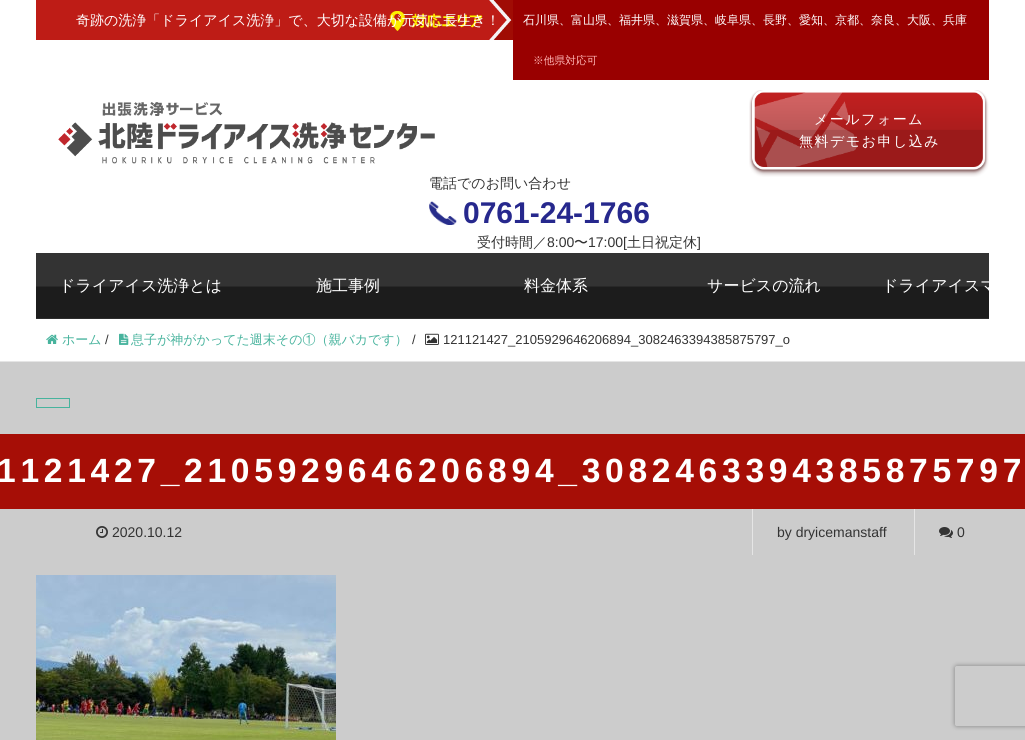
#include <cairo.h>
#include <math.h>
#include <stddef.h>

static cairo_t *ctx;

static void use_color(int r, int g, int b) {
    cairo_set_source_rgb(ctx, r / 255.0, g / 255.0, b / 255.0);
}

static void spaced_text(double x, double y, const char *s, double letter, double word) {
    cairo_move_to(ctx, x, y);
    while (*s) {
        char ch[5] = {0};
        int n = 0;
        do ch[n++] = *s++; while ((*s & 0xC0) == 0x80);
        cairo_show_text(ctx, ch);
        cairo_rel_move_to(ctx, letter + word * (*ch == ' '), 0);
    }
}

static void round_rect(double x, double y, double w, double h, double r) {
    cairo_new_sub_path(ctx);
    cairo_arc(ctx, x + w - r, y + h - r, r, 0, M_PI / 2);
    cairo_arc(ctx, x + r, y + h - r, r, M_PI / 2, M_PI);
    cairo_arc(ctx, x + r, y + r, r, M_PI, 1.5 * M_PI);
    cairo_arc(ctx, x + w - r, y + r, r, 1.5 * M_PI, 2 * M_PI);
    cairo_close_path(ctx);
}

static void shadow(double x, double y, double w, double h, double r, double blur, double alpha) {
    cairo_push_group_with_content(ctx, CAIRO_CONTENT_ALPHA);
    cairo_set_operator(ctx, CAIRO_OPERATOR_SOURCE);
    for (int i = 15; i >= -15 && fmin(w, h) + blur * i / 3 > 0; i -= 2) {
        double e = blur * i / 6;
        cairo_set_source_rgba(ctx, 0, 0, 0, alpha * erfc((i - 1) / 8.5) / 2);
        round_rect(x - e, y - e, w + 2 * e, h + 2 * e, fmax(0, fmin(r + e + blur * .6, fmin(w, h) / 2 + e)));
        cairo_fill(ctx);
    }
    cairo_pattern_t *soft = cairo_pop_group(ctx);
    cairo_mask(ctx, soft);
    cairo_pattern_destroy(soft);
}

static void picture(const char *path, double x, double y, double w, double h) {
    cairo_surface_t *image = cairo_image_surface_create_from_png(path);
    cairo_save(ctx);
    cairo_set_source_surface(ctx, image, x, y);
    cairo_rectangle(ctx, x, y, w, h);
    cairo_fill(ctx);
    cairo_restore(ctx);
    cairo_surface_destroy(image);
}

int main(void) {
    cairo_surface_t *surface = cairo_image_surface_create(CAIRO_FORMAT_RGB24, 1025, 740);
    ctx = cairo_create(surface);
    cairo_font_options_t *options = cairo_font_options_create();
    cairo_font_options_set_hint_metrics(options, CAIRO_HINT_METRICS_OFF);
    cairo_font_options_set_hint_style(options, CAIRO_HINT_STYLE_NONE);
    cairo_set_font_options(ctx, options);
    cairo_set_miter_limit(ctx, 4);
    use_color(255, 255, 255);
    cairo_paint(ctx);
    picture("img1.png", 36, 0, 477, 40);
    cairo_select_font_face(ctx, "WenQuanYi Zen Hei Medium", CAIRO_FONT_SLANT_NORMAL, CAIRO_FONT_WEIGHT_NORMAL);
    cairo_set_font_size(ctx, 14);
    use_color(255, 255, 255);
    cairo_move_to(ctx, 76, 25);
    cairo_show_text(ctx, "奇跡の洗浄「ドライアイス洗浄」で、大切な設備が元気に長生き！");
    use_color(153, 0, 0);
    cairo_rectangle(ctx, 513, 0, 476, 80);
    cairo_fill(ctx);
    cairo_set_font_size(ctx, 12);
    use_color(255, 255, 255);
    cairo_move_to(ctx, 523, 24);
    cairo_show_text(ctx, "石川県、富山県、福井県、滋賀県、岐阜県、長野、愛知、京都、奈良、大阪、兵庫");
    cairo_set_font_size(ctx, 10.75);
    use_color(255, 182, 181);
    cairo_move_to(ctx, 533, 64);
    cairo_show_text(ctx, "※他県対応可");
    picture("img2.png", 58, 102, 377, 62);
    picture("img3.png", 749, 90, 240, 87);
    cairo_set_font_size(ctx, 14);
    use_color(255, 255, 255);
    spaced_text(814, 124, "メールフォーム", 1.5, 0);
    spaced_text(799, 146, "無料デモお申し込み", 1.5, 0);
    use_color(51, 51, 51);
    cairo_move_to(ctx, 429, 188);
    cairo_show_text(ctx, "電話でのお問い合わせ");
    picture("img4.png", 429, 201, 28, 24);
    cairo_select_font_face(ctx, "Liberation Sans", CAIRO_FONT_SLANT_NORMAL, CAIRO_FONT_WEIGHT_BOLD);
    cairo_set_font_size(ctx, 30);
    use_color(38, 40, 141);
    cairo_move_to(ctx, 463, 223);
    cairo_show_text(ctx, "0761-24-1766");
    cairo_select_font_face(ctx, "WenQuanYi Zen Hei Medium", CAIRO_FONT_SLANT_NORMAL, CAIRO_FONT_WEIGHT_NORMAL);
    cairo_set_font_size(ctx, 14);
    use_color(51, 51, 51);
    cairo_move_to(ctx, 477, 247);
    cairo_show_text(ctx, "受付時間／");
    cairo_select_font_face(ctx, "Liberation Sans", CAIRO_FONT_SLANT_NORMAL, CAIRO_FONT_WEIGHT_NORMAL);
    cairo_move_to(ctx, 547, 247);
    cairo_show_text(ctx, "8:00");
    cairo_select_font_face(ctx, "WenQuanYi Zen Hei Medium", CAIRO_FONT_SLANT_NORMAL, CAIRO_FONT_WEIGHT_NORMAL);
    cairo_move_to(ctx, 574, 247);
    cairo_show_text(ctx, "〜");
    cairo_select_font_face(ctx, "Liberation Sans", CAIRO_FONT_SLANT_NORMAL, CAIRO_FONT_WEIGHT_NORMAL);
    cairo_move_to(ctx, 588, 247);
    cairo_show_text(ctx, "17:00[");
    cairo_select_font_face(ctx, "WenQuanYi Zen Hei Medium", CAIRO_FONT_SLANT_NORMAL, CAIRO_FONT_WEIGHT_NORMAL);
    cairo_move_to(ctx, 627, 247);
    cairo_show_text(ctx, "土日祝定休");
    cairo_select_font_face(ctx, "Liberation Sans", CAIRO_FONT_SLANT_NORMAL, CAIRO_FONT_WEIGHT_NORMAL);
    cairo_move_to(ctx, 697, 247);
    cairo_show_text(ctx, "]");
    picture("img5.png", 36, 253, 953, 66);
    cairo_select_font_face(ctx, "WenQuanYi Zen Hei Medium", CAIRO_FONT_SLANT_NORMAL, CAIRO_FONT_WEIGHT_NORMAL);
    cairo_set_font_size(ctx, 16);
    use_color(255, 255, 255);
    cairo_move_to(ctx, 59, 291);
    cairo_show_text(ctx, "ドライアイス洗浄とは");
    cairo_move_to(ctx, 316, 291);
    cairo_show_text(ctx, "施工事例");
    cairo_move_to(ctx, 524, 291);
    cairo_show_text(ctx, "料金体系");
    cairo_move_to(ctx, 707, 291);
    cairo_show_text(ctx, "サービスの流れ");
    cairo_move_to(ctx, 882, 291);
    cairo_show_text(ctx, "ドライアイスマ");
    use_color(229, 229, 229);
    cairo_rectangle(ctx, 0, 361, 1025, 1);
    cairo_fill(ctx);
    picture("img6.png", 46, 334, 12, 10);
    cairo_set_font_size(ctx, 13);
    use_color(71, 179, 157);
    cairo_move_to(ctx, 62, 344);
    cairo_show_text(ctx, "ホーム");
    cairo_select_font_face(ctx, "Liberation Sans", CAIRO_FONT_SLANT_NORMAL, CAIRO_FONT_WEIGHT_NORMAL);
    use_color(51, 51, 51);
    cairo_move_to(ctx, 105, 344);
    cairo_show_text(ctx, "/");
    picture("img7.png", 119, 333, 10, 12);
    cairo_select_font_face(ctx, "WenQuanYi Zen Hei Medium", CAIRO_FONT_SLANT_NORMAL, CAIRO_FONT_WEIGHT_NORMAL);
    use_color(71, 179, 157);
    cairo_move_to(ctx, 131, 344);
    cairo_show_text(ctx, "息子が神がかってた週末その①（親バカです）");
    cairo_select_font_face(ctx, "Liberation Sans", CAIRO_FONT_SLANT_NORMAL, CAIRO_FONT_WEIGHT_NORMAL);
    use_color(51, 51, 51);
    cairo_move_to(ctx, 412, 344);
    cairo_show_text(ctx, "/");
    picture("img8.png", 425, 333, 14, 12);
    cairo_move_to(ctx, 443, 344);
    cairo_show_text(ctx, "121121427_2105929646206894_3082463394385875797_o");
    use_color(204, 204, 204);
    cairo_rectangle(ctx, 0, 362, 1025, 378);
    cairo_fill(ctx);
    cairo_rectangle(ctx, 36.5, 398.5, 33, 9);
    use_color(71, 179, 157);
    cairo_set_line_width(ctx, 1);
    cairo_stroke(ctx);
    use_color(166, 14, 6);
    cairo_rectangle(ctx, 0, 434, 1025, 75);
    cairo_fill(ctx);
    cairo_select_font_face(ctx, "Liberation Sans", CAIRO_FONT_SLANT_NORMAL, CAIRO_FONT_WEIGHT_BOLD);
    cairo_set_font_size(ctx, 33.6);
    use_color(255, 255, 255);
    spaced_text(-3, 482, "1121427_2105929646206894_3082463394385875797", 4.7, 0);
    picture("img9.png", 96, 526, 12, 12);
    cairo_select_font_face(ctx, "Liberation Sans", CAIRO_FONT_SLANT_NORMAL, CAIRO_FONT_WEIGHT_NORMAL);
    cairo_set_font_size(ctx, 14);
    use_color(51, 51, 51);
    cairo_move_to(ctx, 112, 537);
    cairo_show_text(ctx, "2020.10.12");
    use_color(229, 229, 229);
    cairo_rectangle(ctx, 752, 509, 1, 46);
    cairo_fill(ctx);
    use_color(51, 51, 51);
    cairo_move_to(ctx, 777, 537);
    cairo_show_text(ctx, "by dryicemanstaff");
    use_color(229, 229, 229);
    cairo_rectangle(ctx, 914, 509, 1, 46);
    cairo_fill(ctx);
    picture("img10.png", 939, 527, 14, 11);
    use_color(51, 51, 51);
    cairo_move_to(ctx, 957, 537);
    cairo_show_text(ctx, "0");
    picture("img11.png", 36, 575, 300, 165);
    cairo_save(ctx);
    cairo_set_fill_rule(ctx, CAIRO_FILL_RULE_EVEN_ODD);
    cairo_new_path(ctx);
    cairo_move_to(ctx, 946, 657);
    cairo_line_to(ctx, 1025, 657);
    cairo_line_to(ctx, 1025, 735);
    cairo_line_to(ctx, 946, 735);
    cairo_close_path(ctx);
    cairo_move_to(ctx, 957, 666);
    cairo_line_to(ctx, 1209, 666);
    cairo_curve_to(ctx, 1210, 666, 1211, 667, 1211, 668);
    cairo_line_to(ctx, 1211, 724);
    cairo_curve_to(ctx, 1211, 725, 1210, 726, 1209, 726);
    cairo_line_to(ctx, 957, 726);
    cairo_curve_to(ctx, 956, 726, 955, 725, 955, 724);
    cairo_line_to(ctx, 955, 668);
    cairo_curve_to(ctx, 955, 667, 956, 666, 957, 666);
    cairo_close_path(ctx);
    cairo_clip(ctx);
    use_color(128, 128, 128);
    shadow(955, 666, 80, 60, 2, 2.5, 1);
    cairo_restore(ctx);
    cairo_surface_write_to_png(surface, "result.png");
    cairo_font_options_destroy(options);
    cairo_destroy(ctx);
    cairo_surface_destroy(surface);
    return 0;
}
